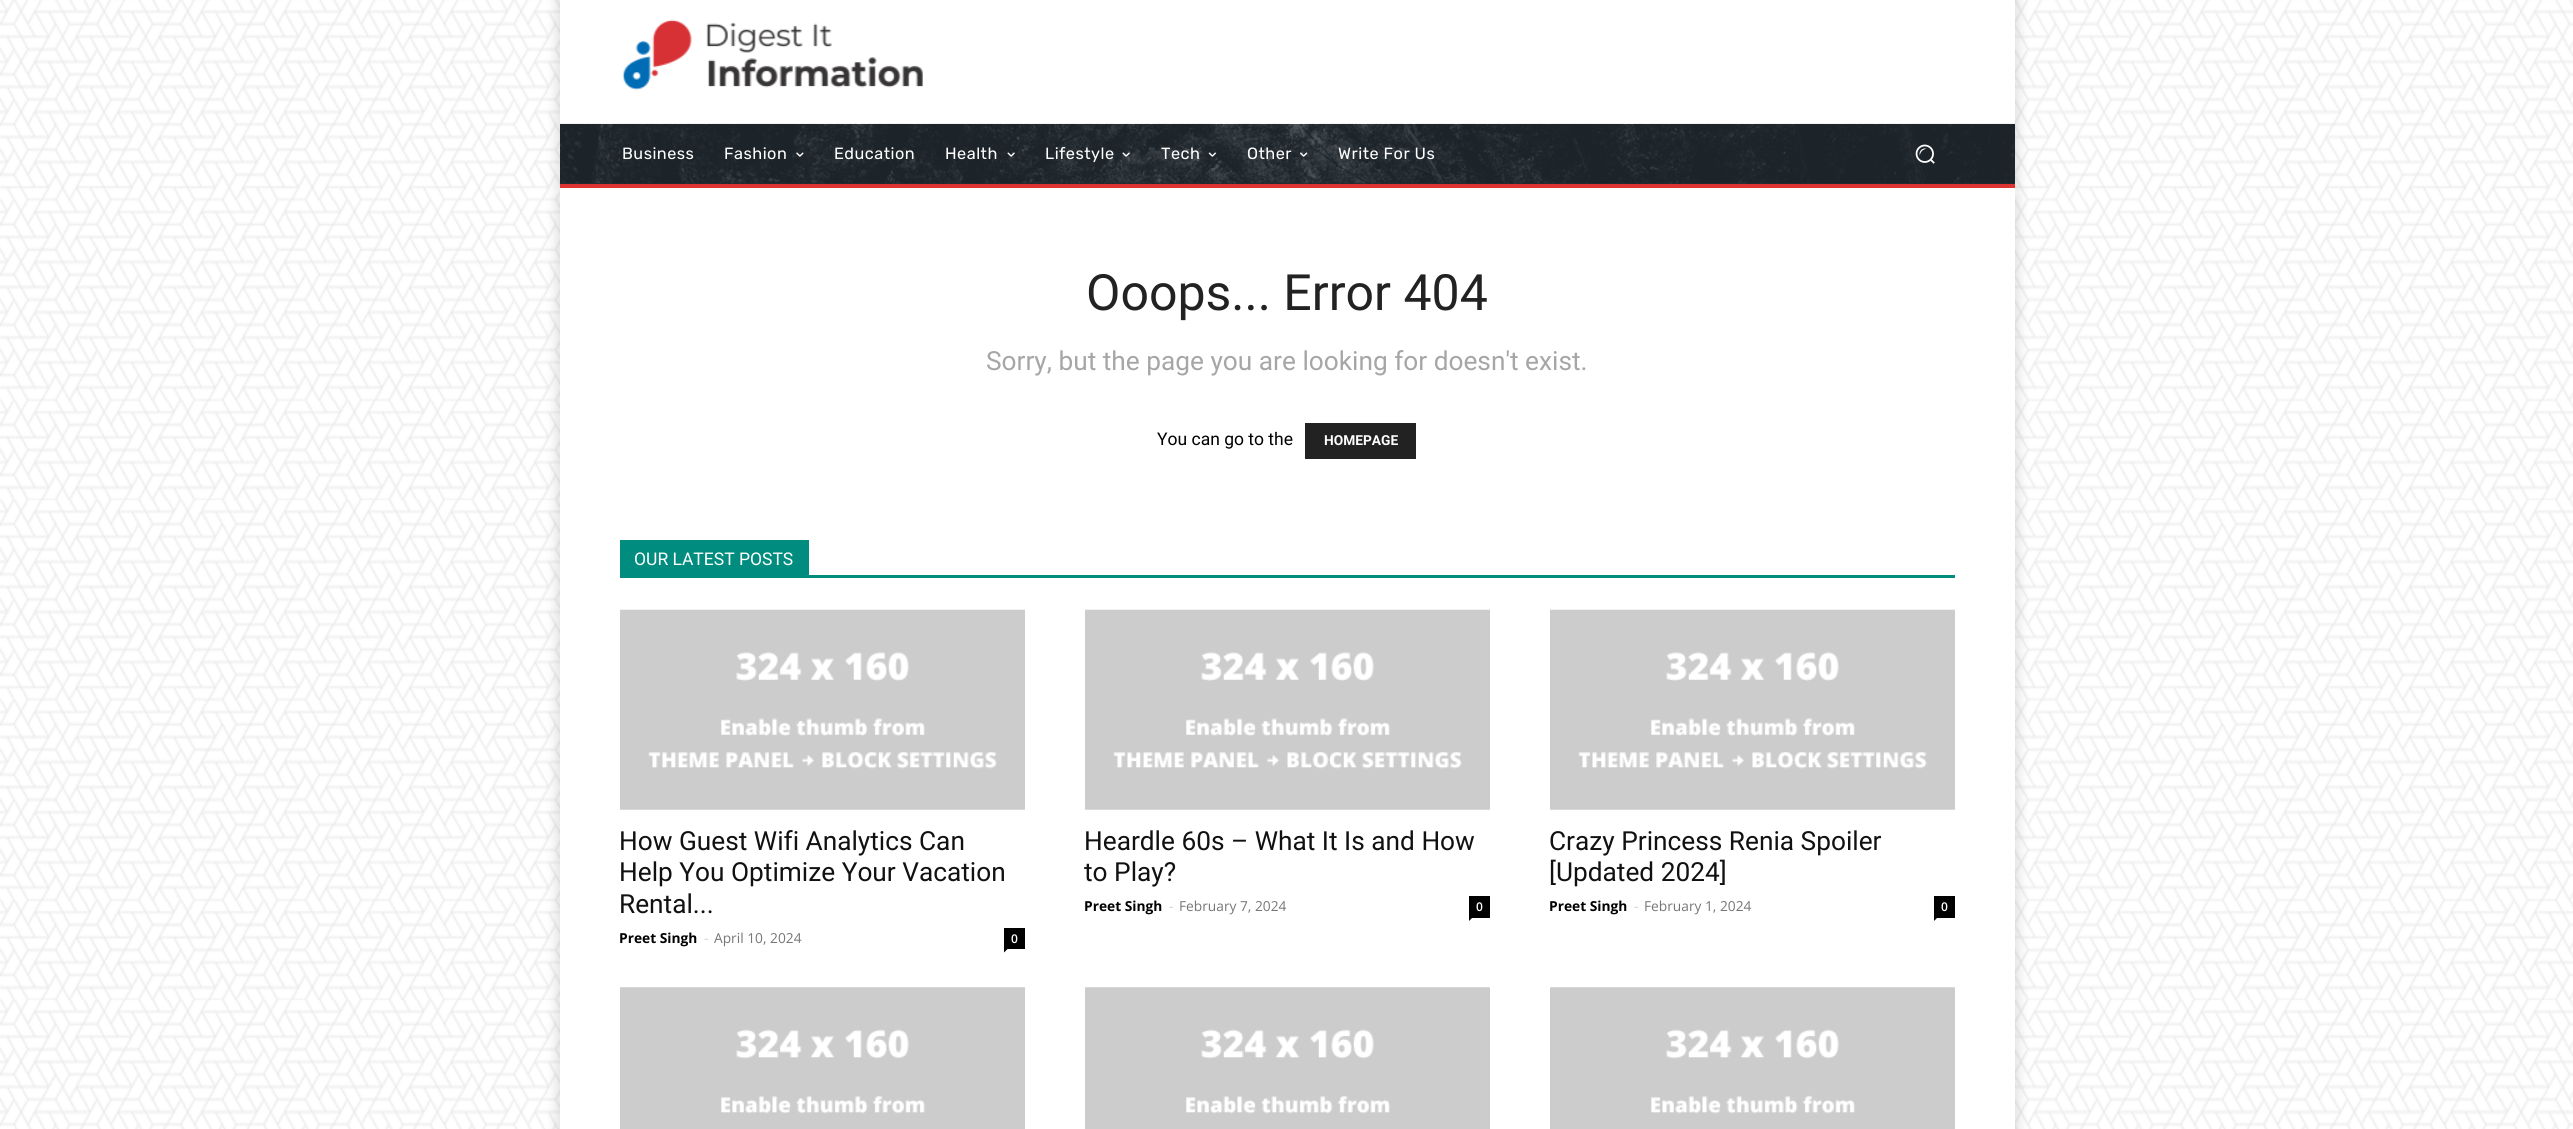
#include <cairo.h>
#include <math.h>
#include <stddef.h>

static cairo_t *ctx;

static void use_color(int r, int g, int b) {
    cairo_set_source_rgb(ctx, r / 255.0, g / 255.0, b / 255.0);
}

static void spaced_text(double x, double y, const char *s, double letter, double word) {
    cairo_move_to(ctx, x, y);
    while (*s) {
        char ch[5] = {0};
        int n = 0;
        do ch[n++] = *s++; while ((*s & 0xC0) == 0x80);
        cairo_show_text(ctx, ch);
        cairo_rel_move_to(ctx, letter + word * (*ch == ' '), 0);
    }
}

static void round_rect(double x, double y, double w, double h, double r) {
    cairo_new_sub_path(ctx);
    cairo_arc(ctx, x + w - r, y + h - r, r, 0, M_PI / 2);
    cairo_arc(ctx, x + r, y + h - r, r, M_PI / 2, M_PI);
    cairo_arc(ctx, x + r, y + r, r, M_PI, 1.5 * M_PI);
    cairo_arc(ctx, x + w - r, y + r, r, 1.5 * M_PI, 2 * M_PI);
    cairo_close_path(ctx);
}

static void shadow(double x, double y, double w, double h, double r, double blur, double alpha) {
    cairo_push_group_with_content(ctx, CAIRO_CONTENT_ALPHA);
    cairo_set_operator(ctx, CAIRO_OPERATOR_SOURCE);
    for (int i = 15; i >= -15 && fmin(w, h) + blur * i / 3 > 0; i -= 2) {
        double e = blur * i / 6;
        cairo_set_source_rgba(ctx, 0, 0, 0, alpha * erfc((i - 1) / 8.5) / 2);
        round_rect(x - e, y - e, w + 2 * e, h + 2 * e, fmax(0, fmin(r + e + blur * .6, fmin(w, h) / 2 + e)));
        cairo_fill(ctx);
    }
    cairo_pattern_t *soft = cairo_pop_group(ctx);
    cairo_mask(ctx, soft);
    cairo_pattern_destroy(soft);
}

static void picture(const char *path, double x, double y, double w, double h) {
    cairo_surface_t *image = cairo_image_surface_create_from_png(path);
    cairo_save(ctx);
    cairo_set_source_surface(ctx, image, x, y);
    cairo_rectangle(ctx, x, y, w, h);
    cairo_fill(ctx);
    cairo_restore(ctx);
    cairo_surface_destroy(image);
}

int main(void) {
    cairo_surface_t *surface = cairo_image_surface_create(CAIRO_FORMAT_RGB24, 2573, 1129);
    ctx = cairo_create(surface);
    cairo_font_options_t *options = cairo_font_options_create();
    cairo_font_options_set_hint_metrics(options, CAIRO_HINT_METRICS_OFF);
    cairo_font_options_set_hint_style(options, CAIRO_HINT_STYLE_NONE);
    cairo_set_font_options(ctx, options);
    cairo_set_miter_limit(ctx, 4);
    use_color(255, 255, 255);
    cairo_paint(ctx);
    picture("img1.png", 0, 0, 2573, 1129);
    use_color(0, 0, 0);
    shadow(556, 196, 1463, 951, 0, 6, 0.12);
    use_color(255, 255, 255);
    cairo_rectangle(ctx, 560, 200, 1455, 929);
    cairo_fill(ctx);
    use_color(0, 0, 0);
    shadow(556, -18, 1463, 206, 0, 6, 0.12);
    use_color(255, 255, 255);
    cairo_rectangle(ctx, 560, 0, 1455, 200);
    cairo_fill(ctx);
    picture("img2.png", 622, 19, 301, 71);
    use_color(35, 45, 53);
    cairo_rectangle(ctx, 560, 124, 1455, 60);
    cairo_fill(ctx);
    picture("img3.png", 560, 123, 1455, 61);
    cairo_select_font_face(ctx, "Rubik", CAIRO_FONT_SLANT_NORMAL, CAIRO_FONT_WEIGHT_NORMAL);
    cairo_set_font_size(ctx, 16.25);
    use_color(255, 255, 255);
    spaced_text(622, 159, "Business", 0.5, 0);
    spaced_text(724, 159, "Fashion", 0.5, 0);
    picture("img4.png", 796, 152, 8, 5);
    spaced_text(834, 159, "Education", 0.5, 0);
    spaced_text(945, 159, "Health", 0.5, 0);
    picture("img5.png", 1007, 152, 8, 5);
    spaced_text(1045, 159, "Lifestyle", 0.5, 0);
    picture("img6.png", 1122, 152, 8, 5);
    spaced_text(1161, 159, "Tech", 0.5, 0);
    picture("img7.png", 1208, 152, 8, 5);
    spaced_text(1247, 159, "Other", 0.5, 0);
    picture("img8.png", 1300, 152, 8, 5);
    spaced_text(1338, 159, "Write For Us", 0.5, 0);
    picture("img9.png", 1915, 144, 20, 20);
    use_color(221, 51, 51);
    cairo_rectangle(ctx, 560, 184, 1455, 4);
    cairo_fill(ctx);
    cairo_select_font_face(ctx, "Roboto", CAIRO_FONT_SLANT_NORMAL, CAIRO_FONT_WEIGHT_NORMAL);
    cairo_set_font_size(ctx, 50);
    use_color(34, 34, 34);
    cairo_move_to(ctx, 1086, 310);
    cairo_show_text(ctx, "Ooops... Error 404");
    cairo_set_font_size(ctx, 26.25);
    use_color(166, 166, 166);
    cairo_move_to(ctx, 986, 370);
    cairo_show_text(ctx, "Sorry, but the page you are looking for doesn't exist.");
    cairo_set_font_size(ctx, 17.5);
    use_color(0, 0, 0);
    cairo_move_to(ctx, 1157, 445);
    cairo_show_text(ctx, "You can go to the");
    use_color(34, 34, 34);
    cairo_rectangle(ctx, 1305, 423, 111, 36);
    cairo_fill(ctx);
    cairo_select_font_face(ctx, "Roboto", CAIRO_FONT_SLANT_NORMAL, CAIRO_FONT_WEIGHT_BOLD);
    cairo_set_font_size(ctx, 13.75);
    use_color(255, 255, 255);
    cairo_move_to(ctx, 1324, 445);
    cairo_show_text(ctx, "HOMEPAGE");
    use_color(0, 141, 127);
    cairo_rectangle(ctx, 620, 575, 1335, 3);
    cairo_fill(ctx);
    cairo_rectangle(ctx, 620, 540, 189, 35);
    cairo_fill(ctx);
    cairo_select_font_face(ctx, "Roboto", CAIRO_FONT_SLANT_NORMAL, CAIRO_FONT_WEIGHT_NORMAL);
    cairo_set_font_size(ctx, 17.5);
    use_color(255, 255, 255);
    cairo_move_to(ctx, 634, 565);
    cairo_show_text(ctx, "OUR LATEST POSTS");
    picture("img10.png", 620, 609, 405, 201);
    cairo_set_font_size(ctx, 26.25);
    use_color(17, 17, 17);
    cairo_move_to(ctx, 619, 850);
    cairo_show_text(ctx, "How Guest Wifi Analytics Can");
    cairo_move_to(ctx, 619, 881);
    cairo_show_text(ctx, "Help You Optimize Your Vacation");
    cairo_move_to(ctx, 619, 913);
    cairo_show_text(ctx, "Rental...");
    cairo_select_font_face(ctx, "Open Sans", CAIRO_FONT_SLANT_NORMAL, CAIRO_FONT_WEIGHT_BOLD);
    cairo_set_font_size(ctx, 13.75);
    use_color(0, 0, 0);
    cairo_move_to(ctx, 619, 943);
    cairo_show_text(ctx, "Preet Singh");
    cairo_select_font_face(ctx, "Open Sans", CAIRO_FONT_SLANT_NORMAL, CAIRO_FONT_WEIGHT_NORMAL);
    use_color(204, 204, 204);
    cairo_move_to(ctx, 704, 943);
    cairo_show_text(ctx, "-");
    use_color(118, 118, 118);
    cairo_move_to(ctx, 714, 943);
    cairo_show_text(ctx, "April 10, 2024");
    use_color(0, 0, 0);
    cairo_rectangle(ctx, 1004, 928, 21, 21);
    cairo_fill(ctx);
    cairo_select_font_face(ctx, "Open Sans SemiBold", CAIRO_FONT_SLANT_NORMAL, CAIRO_FONT_WEIGHT_NORMAL);
    cairo_set_font_size(ctx, 12);
    use_color(255, 255, 255);
    cairo_move_to(ctx, 1011, 943);
    cairo_show_text(ctx, "0");
    use_color(0, 0, 0);
    cairo_new_path(ctx);
    cairo_move_to(ctx, 1004, 949);
    cairo_line_to(ctx, 1007.5, 949);
    cairo_line_to(ctx, 1004, 952.5);
    cairo_close_path(ctx);
    cairo_fill(ctx);
    picture("img11.png", 1085, 609, 405, 201);
    cairo_select_font_face(ctx, "Roboto", CAIRO_FONT_SLANT_NORMAL, CAIRO_FONT_WEIGHT_NORMAL);
    cairo_set_font_size(ctx, 26.25);
    use_color(17, 17, 17);
    cairo_move_to(ctx, 1084, 850);
    cairo_show_text(ctx, "Heardle 60s – What It Is and How");
    cairo_move_to(ctx, 1084, 881);
    cairo_show_text(ctx, "to Play?");
    cairo_select_font_face(ctx, "Open Sans", CAIRO_FONT_SLANT_NORMAL, CAIRO_FONT_WEIGHT_BOLD);
    cairo_set_font_size(ctx, 13.75);
    use_color(0, 0, 0);
    cairo_move_to(ctx, 1084, 911);
    cairo_show_text(ctx, "Preet Singh");
    cairo_select_font_face(ctx, "Open Sans", CAIRO_FONT_SLANT_NORMAL, CAIRO_FONT_WEIGHT_NORMAL);
    use_color(204, 204, 204);
    cairo_move_to(ctx, 1169, 911);
    cairo_show_text(ctx, "-");
    use_color(118, 118, 118);
    cairo_move_to(ctx, 1179, 911);
    cairo_show_text(ctx, "February 7, 2024");
    use_color(0, 0, 0);
    cairo_rectangle(ctx, 1469, 896, 21, 22);
    cairo_fill(ctx);
    cairo_select_font_face(ctx, "Open Sans SemiBold", CAIRO_FONT_SLANT_NORMAL, CAIRO_FONT_WEIGHT_NORMAL);
    cairo_set_font_size(ctx, 12);
    use_color(255, 255, 255);
    cairo_move_to(ctx, 1476, 911);
    cairo_show_text(ctx, "0");
    use_color(0, 0, 0);
    cairo_new_path(ctx);
    cairo_move_to(ctx, 1469, 917.5);
    cairo_line_to(ctx, 1472.5, 917.5);
    cairo_line_to(ctx, 1469, 921);
    cairo_close_path(ctx);
    cairo_fill(ctx);
    picture("img10.png", 1550, 609, 405, 201);
    cairo_select_font_face(ctx, "Roboto", CAIRO_FONT_SLANT_NORMAL, CAIRO_FONT_WEIGHT_NORMAL);
    cairo_set_font_size(ctx, 26.25);
    use_color(17, 17, 17);
    cairo_move_to(ctx, 1549, 850);
    cairo_show_text(ctx, "Crazy Princess Renia Spoiler");
    cairo_move_to(ctx, 1549, 881);
    cairo_show_text(ctx, "[Updated 2024]");
    cairo_select_font_face(ctx, "Open Sans", CAIRO_FONT_SLANT_NORMAL, CAIRO_FONT_WEIGHT_BOLD);
    cairo_set_font_size(ctx, 13.75);
    use_color(0, 0, 0);
    cairo_move_to(ctx, 1549, 911);
    cairo_show_text(ctx, "Preet Singh");
    cairo_select_font_face(ctx, "Open Sans", CAIRO_FONT_SLANT_NORMAL, CAIRO_FONT_WEIGHT_NORMAL);
    use_color(204, 204, 204);
    cairo_move_to(ctx, 1634, 911);
    cairo_show_text(ctx, "-");
    use_color(118, 118, 118);
    cairo_move_to(ctx, 1644, 911);
    cairo_show_text(ctx, "February 1, 2024");
    use_color(0, 0, 0);
    cairo_rectangle(ctx, 1934, 896, 21, 22);
    cairo_fill(ctx);
    cairo_select_font_face(ctx, "Open Sans SemiBold", CAIRO_FONT_SLANT_NORMAL, CAIRO_FONT_WEIGHT_NORMAL);
    cairo_set_font_size(ctx, 12);
    use_color(255, 255, 255);
    cairo_move_to(ctx, 1941, 911);
    cairo_show_text(ctx, "0");
    use_color(0, 0, 0);
    cairo_new_path(ctx);
    cairo_move_to(ctx, 1934, 917.5);
    cairo_line_to(ctx, 1937.5, 917.5);
    cairo_line_to(ctx, 1934, 921);
    cairo_close_path(ctx);
    cairo_fill(ctx);
    picture("img12.png", 620, 987, 405, 142);
    picture("img13.png", 1085, 987, 405, 142);
    picture("img12.png", 1550, 987, 405, 142);
    cairo_surface_write_to_png(surface, "result.png");
    cairo_font_options_destroy(options);
    cairo_destroy(ctx);
    cairo_surface_destroy(surface);
    return 0;
}
